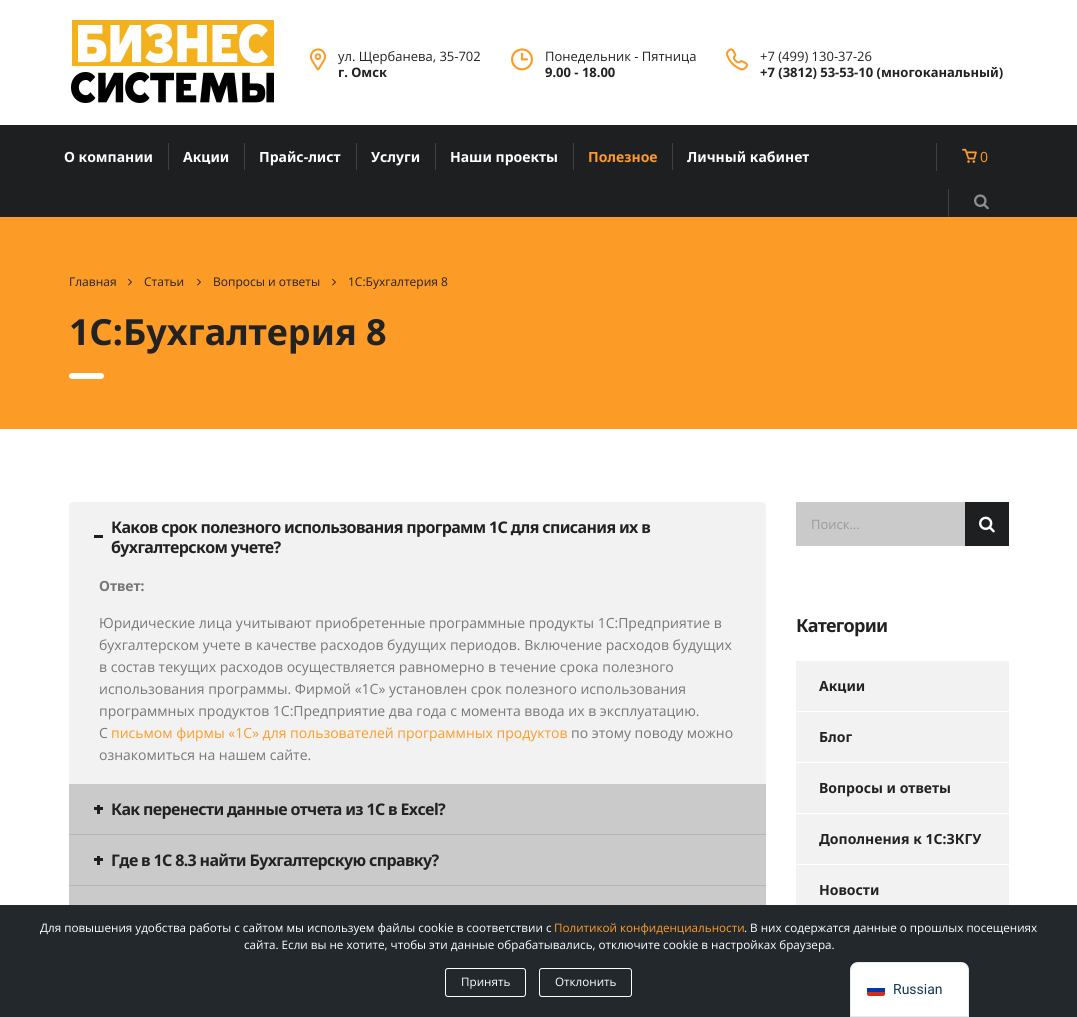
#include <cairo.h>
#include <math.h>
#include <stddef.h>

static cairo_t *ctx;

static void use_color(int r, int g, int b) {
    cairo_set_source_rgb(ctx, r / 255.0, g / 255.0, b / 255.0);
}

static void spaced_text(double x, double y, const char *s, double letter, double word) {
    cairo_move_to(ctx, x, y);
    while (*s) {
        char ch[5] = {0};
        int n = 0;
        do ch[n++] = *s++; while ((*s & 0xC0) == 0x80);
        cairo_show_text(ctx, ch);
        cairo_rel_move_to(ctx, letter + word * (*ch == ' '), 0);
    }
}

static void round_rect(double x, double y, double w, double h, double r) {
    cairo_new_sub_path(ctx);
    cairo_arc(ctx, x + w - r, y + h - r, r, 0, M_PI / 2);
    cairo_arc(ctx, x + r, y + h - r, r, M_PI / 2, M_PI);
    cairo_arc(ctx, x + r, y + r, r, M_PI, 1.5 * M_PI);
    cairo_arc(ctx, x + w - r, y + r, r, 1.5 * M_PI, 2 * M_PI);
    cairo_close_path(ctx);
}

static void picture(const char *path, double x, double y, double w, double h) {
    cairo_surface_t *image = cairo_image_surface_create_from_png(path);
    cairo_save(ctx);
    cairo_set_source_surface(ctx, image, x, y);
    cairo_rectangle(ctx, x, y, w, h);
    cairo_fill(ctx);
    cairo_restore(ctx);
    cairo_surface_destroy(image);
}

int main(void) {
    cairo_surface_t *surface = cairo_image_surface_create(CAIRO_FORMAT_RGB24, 1077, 1017);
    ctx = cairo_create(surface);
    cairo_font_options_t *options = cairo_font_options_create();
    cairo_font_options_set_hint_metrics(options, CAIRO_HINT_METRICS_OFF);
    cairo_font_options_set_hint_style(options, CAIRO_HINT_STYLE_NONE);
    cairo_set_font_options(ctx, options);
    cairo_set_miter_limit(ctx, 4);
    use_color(255, 255, 255);
    cairo_paint(ctx);
    picture("img1.png", 70, 19, 206, 84);
    picture("img2.png", 310, 48, 16, 23);
    cairo_select_font_face(ctx, "Open Sans", CAIRO_FONT_SLANT_NORMAL, CAIRO_FONT_WEIGHT_NORMAL);
    cairo_set_font_size(ctx, 13);
    use_color(34, 34, 34);
    cairo_move_to(ctx, 338, 61);
    cairo_show_text(ctx, "ул. Щербанева, 35-702");
    cairo_select_font_face(ctx, "Noto Sans", CAIRO_FONT_SLANT_NORMAL, CAIRO_FONT_WEIGHT_BOLD);
    cairo_move_to(ctx, 338, 77);
    cairo_show_text(ctx, "г. Омск");
    picture("img3.png", 511, 48, 22, 23);
    cairo_select_font_face(ctx, "Open Sans", CAIRO_FONT_SLANT_NORMAL, CAIRO_FONT_WEIGHT_NORMAL);
    cairo_move_to(ctx, 545, 61);
    cairo_show_text(ctx, "Понедельник - Пятница");
    cairo_select_font_face(ctx, "Noto Sans", CAIRO_FONT_SLANT_NORMAL, CAIRO_FONT_WEIGHT_BOLD);
    cairo_move_to(ctx, 545, 77);
    cairo_show_text(ctx, "9.00 - 18.00");
    picture("img4.png", 726, 48, 22, 23);
    cairo_select_font_face(ctx, "Open Sans", CAIRO_FONT_SLANT_NORMAL, CAIRO_FONT_WEIGHT_NORMAL);
    cairo_move_to(ctx, 760, 61);
    cairo_show_text(ctx, "+7 (499) 130-37-26");
    cairo_select_font_face(ctx, "Noto Sans", CAIRO_FONT_SLANT_NORMAL, CAIRO_FONT_WEIGHT_BOLD);
    cairo_move_to(ctx, 760, 77);
    cairo_show_text(ctx, "+7 (3812) 53-53-10 (многоканальный)");
    use_color(30, 31, 33);
    cairo_rectangle(ctx, 0, 125, 1077, 92);
    cairo_fill(ctx);
    cairo_set_font_size(ctx, 14);
    use_color(255, 255, 255);
    cairo_move_to(ctx, 64, 162);
    cairo_show_text(ctx, "О компании");
    use_color(64, 65, 66);
    cairo_rectangle(ctx, 168, 143, 1, 27);
    cairo_fill(ctx);
    use_color(255, 255, 255);
    cairo_move_to(ctx, 183, 162);
    cairo_show_text(ctx, "Акции");
    use_color(64, 65, 66);
    cairo_rectangle(ctx, 244, 143, 1, 27);
    cairo_fill(ctx);
    use_color(255, 255, 255);
    cairo_move_to(ctx, 259, 162);
    cairo_show_text(ctx, "Прайс-лист");
    use_color(64, 65, 66);
    cairo_rectangle(ctx, 356, 143, 1, 27);
    cairo_fill(ctx);
    use_color(255, 255, 255);
    cairo_move_to(ctx, 371, 162);
    cairo_show_text(ctx, "Услуги");
    use_color(64, 65, 66);
    cairo_rectangle(ctx, 435, 143, 1, 27);
    cairo_fill(ctx);
    use_color(255, 255, 255);
    cairo_move_to(ctx, 450, 162);
    cairo_show_text(ctx, "Наши проекты");
    use_color(64, 65, 66);
    cairo_rectangle(ctx, 573, 143, 1, 27);
    cairo_fill(ctx);
    use_color(253, 155, 40);
    cairo_move_to(ctx, 588, 162);
    cairo_show_text(ctx, "Полезное");
    use_color(64, 65, 66);
    cairo_rectangle(ctx, 672, 143, 1, 27);
    cairo_fill(ctx);
    use_color(255, 255, 255);
    cairo_move_to(ctx, 687, 162);
    cairo_show_text(ctx, "Личный кабинет");
    use_color(64, 65, 66);
    cairo_rectangle(ctx, 936, 143, 1, 28);
    cairo_fill(ctx);
    picture("img5.png", 962, 148, 15, 15);
    cairo_select_font_face(ctx, "Open Sans", CAIRO_FONT_SLANT_NORMAL, CAIRO_FONT_WEIGHT_NORMAL);
    use_color(253, 155, 40);
    cairo_move_to(ctx, 980, 162);
    cairo_show_text(ctx, "0");
    use_color(64, 65, 66);
    cairo_rectangle(ctx, 948, 189, 1, 28);
    cairo_fill(ctx);
    picture("img6.png", 974, 194, 15, 16);
    use_color(253, 155, 39);
    cairo_rectangle(ctx, 0, 217, 1077, 212);
    cairo_fill(ctx);
    cairo_set_font_size(ctx, 12);
    use_color(34, 34, 34);
    cairo_move_to(ctx, 69, 286);
    cairo_show_text(ctx, "Главная");
    picture("img7.png", 128, 278, 4, 8);
    cairo_move_to(ctx, 144, 286);
    cairo_show_text(ctx, "Статьи");
    picture("img7.png", 197, 278, 4, 8);
    cairo_move_to(ctx, 213, 286);
    cairo_show_text(ctx, "Вопросы и ответы");
    picture("img7.png", 332, 278, 4, 8);
    cairo_move_to(ctx, 348, 286);
    cairo_show_text(ctx, "1С:Бухгалтерия 8");
    cairo_select_font_face(ctx, "Noto Sans", CAIRO_FONT_SLANT_NORMAL, CAIRO_FONT_WEIGHT_BOLD);
    cairo_set_font_size(ctx, 36);
    cairo_move_to(ctx, 69, 345);
    cairo_show_text(ctx, "1С:Бухгалтерия 8");
    use_color(255, 255, 255);
    round_rect(69, 373, 35, 6, 3);
    cairo_fill(ctx);
    use_color(242, 242, 242);
    cairo_new_path(ctx);
    cairo_move_to(ctx, 74, 502);
    cairo_line_to(ctx, 761, 502);
    cairo_curve_to(ctx, 764, 502, 766, 504, 766, 507);
    cairo_line_to(ctx, 766, 572);
    cairo_line_to(ctx, 69, 572);
    cairo_line_to(ctx, 69, 507);
    cairo_curve_to(ctx, 69, 504, 71, 502, 74, 502);
    cairo_close_path(ctx);
    cairo_fill(ctx);
    use_color(30, 31, 33);
    cairo_rectangle(ctx, 94, 535, 9, 3);
    cairo_fill(ctx);
    cairo_set_font_size(ctx, 16);
    use_color(34, 34, 34);
    spaced_text(111, 533, "Каков срок полезного использования программ 1С для списания их в", -0.65, 0);
    spaced_text(111, 553, "бухгалтерском учете?", -0.65, 0);
    use_color(242, 242, 242);
    cairo_rectangle(ctx, 69, 572, 697, 212);
    cairo_fill(ctx);
    cairo_set_font_size(ctx, 14);
    use_color(119, 119, 119);
    cairo_move_to(ctx, 99, 591);
    cairo_show_text(ctx, "Ответ:");
    cairo_select_font_face(ctx, "Open Sans", CAIRO_FONT_SLANT_NORMAL, CAIRO_FONT_WEIGHT_NORMAL);
    cairo_move_to(ctx, 99, 628);
    cairo_show_text(ctx, "Юридические лица учитывают приобретенные программные продукты 1С:Предприятие в");
    cairo_move_to(ctx, 99, 650);
    cairo_show_text(ctx, "бухгалтерском учете в качестве расходов будущих периодов. Включение расходов будущих");
    cairo_move_to(ctx, 99, 672);
    cairo_show_text(ctx, "в состав текущих расходов осуществляется равномерно в течение срока полезного");
    cairo_move_to(ctx, 99, 694);
    cairo_show_text(ctx, "использования программы. Фирмой «1С» установлен срок полезного использования");
    cairo_move_to(ctx, 99, 716);
    cairo_show_text(ctx, "программных продуктов 1С:Предприятие два года с момента ввода их в эксплуатацию.");
    cairo_move_to(ctx, 99, 738);
    cairo_show_text(ctx, "С");
    use_color(253, 155, 40);
    cairo_move_to(ctx, 111, 738);
    cairo_show_text(ctx, "письмом фирмы «1С» для пользователей программных продуктов");
    use_color(119, 119, 119);
    cairo_move_to(ctx, 571, 738);
    cairo_show_text(ctx, "по этому поводу можно");
    cairo_move_to(ctx, 99, 760);
    cairo_show_text(ctx, "ознакомиться на нашем сайте.");
    use_color(202, 202, 202);
    cairo_rectangle(ctx, 69, 784, 697, 50);
    cairo_fill(ctx);
    use_color(30, 31, 33);
    cairo_rectangle(ctx, 94, 807, 9, 3);
    cairo_fill(ctx);
    cairo_rectangle(ctx, 97, 805, 3, 9);
    cairo_fill(ctx);
    cairo_select_font_face(ctx, "Noto Sans", CAIRO_FONT_SLANT_NORMAL, CAIRO_FONT_WEIGHT_BOLD);
    cairo_set_font_size(ctx, 16);
    use_color(34, 34, 34);
    spaced_text(111, 815, "Как перенести данные отчета из 1С в Excel?", -0.65, 0);
    use_color(202, 202, 202);
    cairo_rectangle(ctx, 69, 835, 697, 50);
    cairo_fill(ctx);
    use_color(182, 182, 182);
    cairo_rectangle(ctx, 69, 834, 697, 1);
    cairo_fill(ctx);
    use_color(30, 31, 33);
    cairo_rectangle(ctx, 94, 858, 9, 3);
    cairo_fill(ctx);
    cairo_rectangle(ctx, 97, 856, 3, 9);
    cairo_fill(ctx);
    use_color(34, 34, 34);
    spaced_text(111, 866, "Где в 1С 8.3 найти Бухгалтерскую справку?", -0.65, 0);
    use_color(202, 202, 202);
    cairo_rectangle(ctx, 69, 886, 697, 19);
    cairo_fill(ctx);
    use_color(182, 182, 182);
    cairo_rectangle(ctx, 69, 885, 697, 1);
    cairo_fill(ctx);
    use_color(202, 202, 202);
    cairo_rectangle(ctx, 796, 502, 169, 44);
    cairo_fill(ctx);
    cairo_select_font_face(ctx, "Open Sans", CAIRO_FONT_SLANT_NORMAL, CAIRO_FONT_WEIGHT_NORMAL);
    cairo_set_font_size(ctx, 13);
    use_color(153, 153, 153);
    cairo_move_to(ctx, 811, 529);
    cairo_show_text(ctx, "Поиск…");
    use_color(30, 31, 33);
    cairo_rectangle(ctx, 965, 502, 44, 44);
    cairo_fill(ctx);
    picture("img8.png", 979, 516, 16, 17);
    cairo_select_font_face(ctx, "Noto Sans", CAIRO_FONT_SLANT_NORMAL, CAIRO_FONT_WEIGHT_BOLD);
    cairo_set_font_size(ctx, 18);
    use_color(34, 34, 34);
    spaced_text(796, 632, "Категории", -0.75, 0);
    use_color(242, 242, 242);
    cairo_rectangle(ctx, 796, 661, 213, 50);
    cairo_fill(ctx);
    cairo_set_font_size(ctx, 14);
    use_color(34, 34, 34);
    cairo_move_to(ctx, 819, 691);
    cairo_show_text(ctx, "Акции");
    use_color(242, 242, 242);
    cairo_rectangle(ctx, 796, 712, 213, 50);
    cairo_fill(ctx);
    use_color(34, 34, 34);
    cairo_move_to(ctx, 819, 742);
    cairo_show_text(ctx, "Блог");
    use_color(242, 242, 242);
    cairo_rectangle(ctx, 796, 763, 213, 50);
    cairo_fill(ctx);
    use_color(34, 34, 34);
    cairo_move_to(ctx, 819, 793);
    cairo_show_text(ctx, "Вопросы и ответы");
    use_color(242, 242, 242);
    cairo_rectangle(ctx, 796, 814, 213, 50);
    cairo_fill(ctx);
    use_color(34, 34, 34);
    cairo_move_to(ctx, 819, 844);
    cairo_show_text(ctx, "Дополнения к 1С:ЗКГУ");
    use_color(242, 242, 242);
    cairo_rectangle(ctx, 796, 865, 213, 40);
    cairo_fill(ctx);
    use_color(34, 34, 34);
    cairo_move_to(ctx, 819, 895);
    cairo_show_text(ctx, "Новости");
    use_color(35, 40, 45);
    cairo_rectangle(ctx, 0, 905, 1077, 112);
    cairo_fill(ctx);
    cairo_select_font_face(ctx, "Open Sans", CAIRO_FONT_SLANT_NORMAL, CAIRO_FONT_WEIGHT_NORMAL);
    cairo_set_font_size(ctx, 11.67);
    use_color(255, 255, 255);
    cairo_move_to(ctx, 40, 932);
    cairo_show_text(ctx, "Для повышения удобства работы с сайтом мы используем файлы cookie в соответствии с");
    use_color(253, 155, 40);
    cairo_move_to(ctx, 554, 932);
    cairo_show_text(ctx, "Политикой конфиденциальности");
    use_color(255, 255, 255);
    cairo_move_to(ctx, 744, 932);
    cairo_show_text(ctx, ". В них содержатся данные о прошлых посещениях");
    cairo_move_to(ctx, 244, 949);
    cairo_show_text(ctx, "сайта. Если вы не хотите, чтобы эти данные обрабатывались, отключите cookie в настройках браузера.");
    round_rect(445.5, 968.5, 80, 28, 2.5);
    cairo_set_line_width(ctx, 1);
    cairo_stroke(ctx);
    cairo_move_to(ctx, 461, 986);
    cairo_show_text(ctx, "Принять");
    round_rect(539.5, 968.5, 92, 28, 2.5);
    cairo_stroke(ctx);
    cairo_move_to(ctx, 555, 986);
    cairo_show_text(ctx, "Отклонить");
    cairo_new_path(ctx);
    cairo_move_to(ctx, 858, 962);
    cairo_line_to(ctx, 961, 962);
    cairo_curve_to(ctx, 965.5, 962, 969, 965.5, 969, 970);
    cairo_line_to(ctx, 969, 1017);
    cairo_line_to(ctx, 850, 1017);
    cairo_line_to(ctx, 850, 970);
    cairo_curve_to(ctx, 850, 965.5, 853.5, 962, 858, 962);
    cairo_close_path(ctx);
    cairo_fill(ctx);
    cairo_new_path(ctx);
    cairo_move_to(ctx, 858, 962.5);
    cairo_line_to(ctx, 961, 962.5);
    cairo_curve_to(ctx, 965, 962.5, 968.5, 966, 968.5, 970);
    cairo_line_to(ctx, 968.5, 1016.5);
    cairo_line_to(ctx, 850.5, 1016.5);
    cairo_line_to(ctx, 850.5, 970);
    cairo_curve_to(ctx, 850.5, 966, 854, 962.5, 858, 962.5);
    cairo_close_path(ctx);
    cairo_set_source_rgba(ctx, 0.078, 0.22, 0.322, 0.1);
    cairo_stroke(ctx);
    use_color(0, 57, 166);
    cairo_rectangle(ctx, 867, 988, 18, 4);
    cairo_fill(ctx);
    use_color(213, 43, 30);
    cairo_new_path(ctx);
    cairo_move_to(ctx, 867, 992);
    cairo_line_to(ctx, 885, 992);
    cairo_line_to(ctx, 885, 994);
    cairo_curve_to(ctx, 885, 995, 884, 996, 883, 996);
    cairo_line_to(ctx, 869, 996);
    cairo_curve_to(ctx, 868, 996, 867, 995, 867, 994);
    cairo_close_path(ctx);
    cairo_fill(ctx);
    cairo_select_font_face(ctx, "Roboto", CAIRO_FONT_SLANT_NORMAL, CAIRO_FONT_WEIGHT_NORMAL);
    cairo_set_font_size(ctx, 14);
    use_color(20, 56, 82);
    cairo_move_to(ctx, 893, 994);
    cairo_show_text(ctx, "Russian");
    cairo_surface_write_to_png(surface, "result.png");
    cairo_font_options_destroy(options);
    cairo_destroy(ctx);
    cairo_surface_destroy(surface);
    return 0;
}
